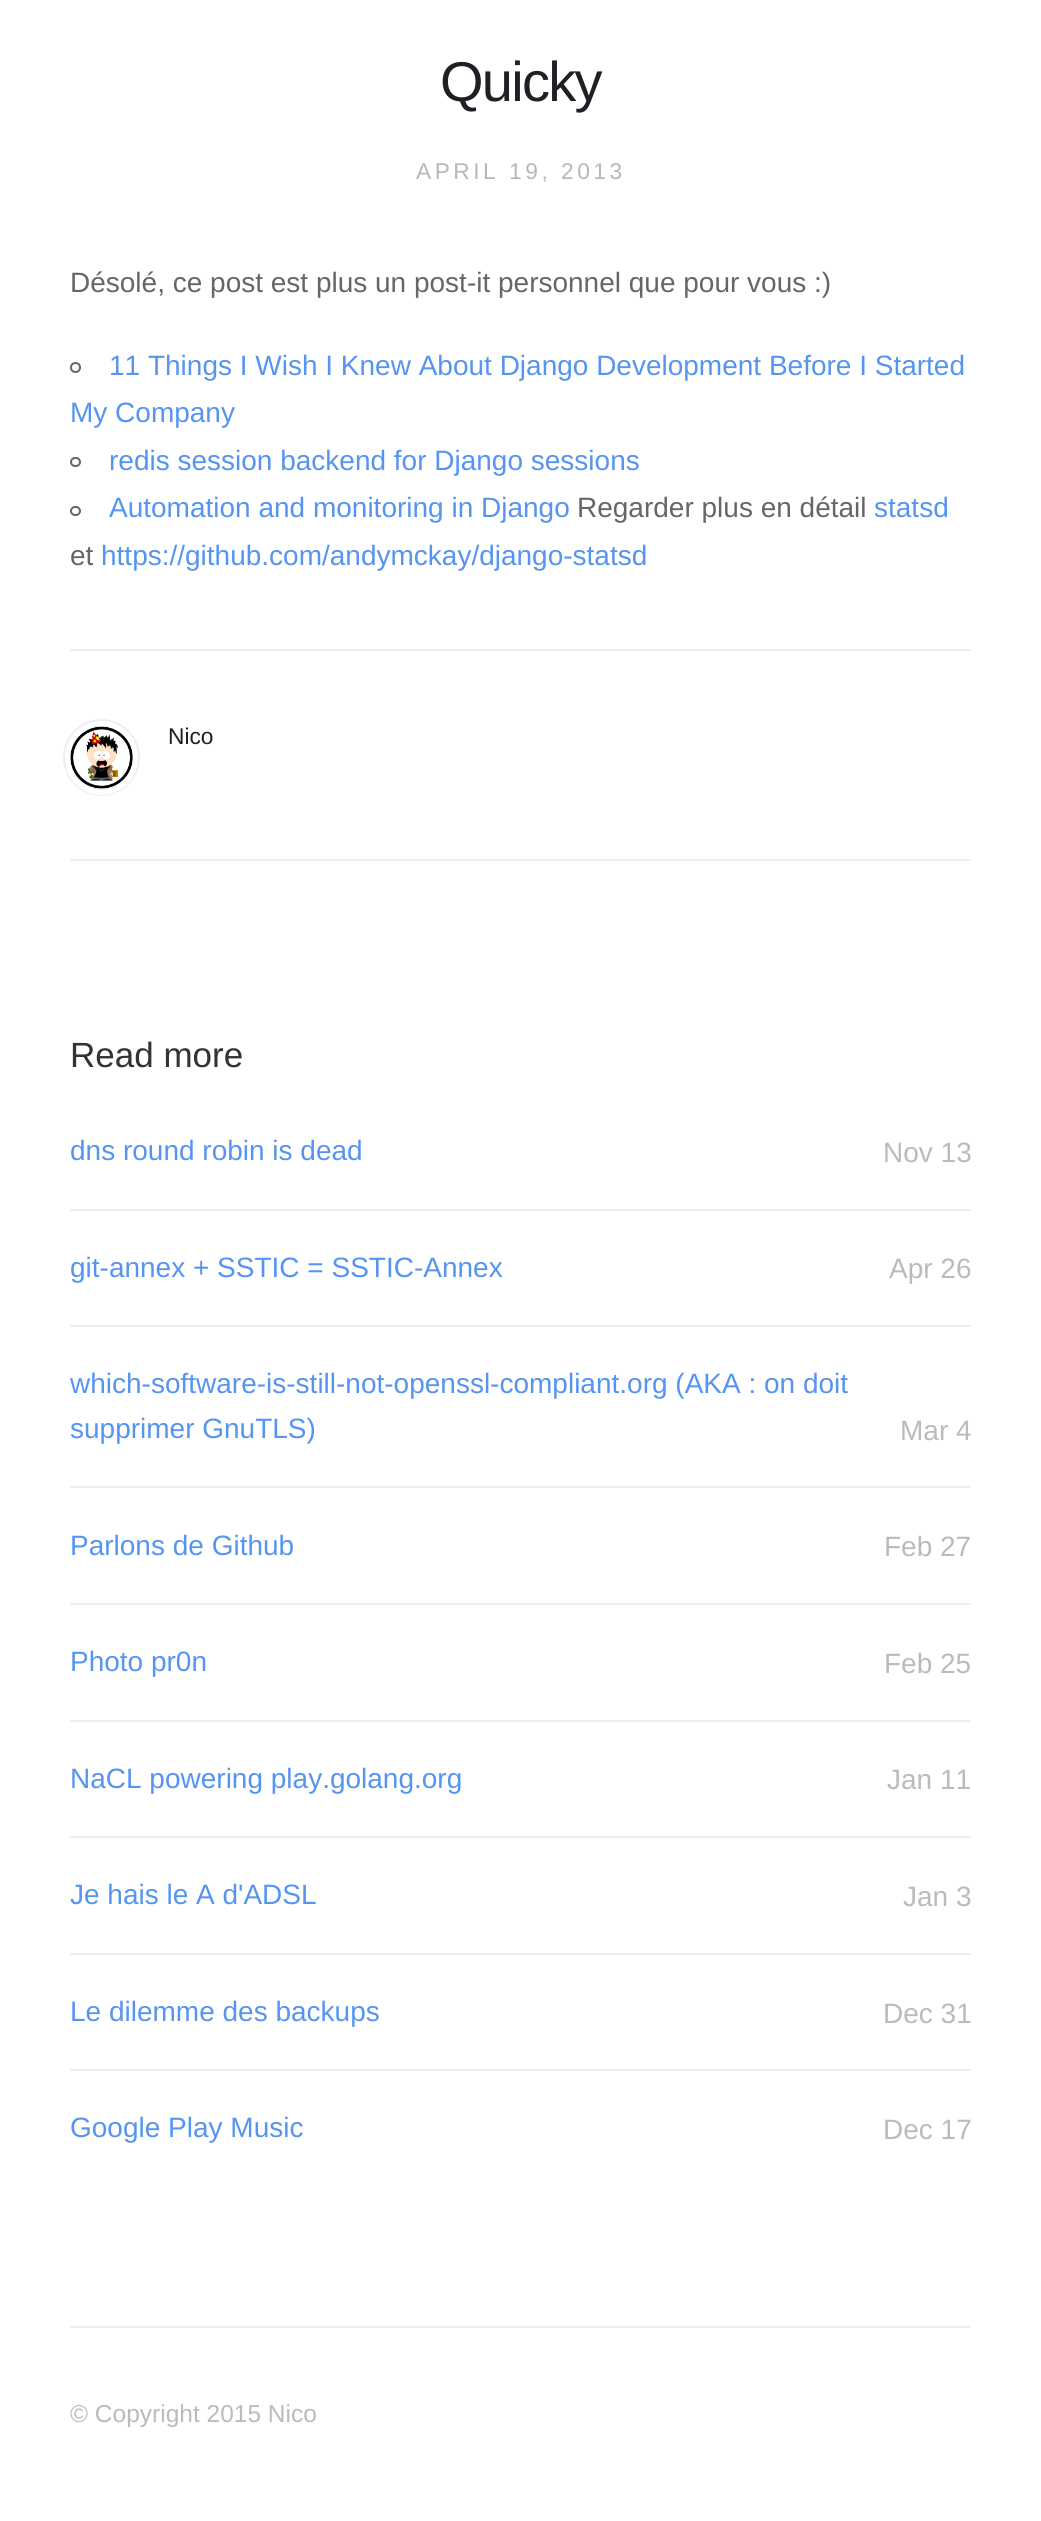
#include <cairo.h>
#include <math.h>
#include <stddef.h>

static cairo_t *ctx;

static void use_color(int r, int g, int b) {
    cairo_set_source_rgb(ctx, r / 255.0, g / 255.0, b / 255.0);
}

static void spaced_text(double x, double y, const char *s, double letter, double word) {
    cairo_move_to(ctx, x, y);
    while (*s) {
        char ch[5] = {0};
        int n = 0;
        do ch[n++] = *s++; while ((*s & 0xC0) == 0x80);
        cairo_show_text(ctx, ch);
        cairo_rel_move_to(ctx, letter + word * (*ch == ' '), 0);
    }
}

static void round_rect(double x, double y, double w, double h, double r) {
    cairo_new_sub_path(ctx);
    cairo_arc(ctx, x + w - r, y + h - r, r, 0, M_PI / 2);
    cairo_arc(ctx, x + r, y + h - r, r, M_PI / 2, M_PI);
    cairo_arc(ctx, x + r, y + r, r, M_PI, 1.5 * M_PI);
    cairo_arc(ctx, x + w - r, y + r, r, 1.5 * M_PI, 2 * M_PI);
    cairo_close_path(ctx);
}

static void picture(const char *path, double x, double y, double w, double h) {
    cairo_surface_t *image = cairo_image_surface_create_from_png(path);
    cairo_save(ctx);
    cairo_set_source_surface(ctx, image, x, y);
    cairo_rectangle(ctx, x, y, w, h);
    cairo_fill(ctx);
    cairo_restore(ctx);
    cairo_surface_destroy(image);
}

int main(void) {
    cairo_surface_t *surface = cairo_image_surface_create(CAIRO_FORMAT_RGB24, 1041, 2521);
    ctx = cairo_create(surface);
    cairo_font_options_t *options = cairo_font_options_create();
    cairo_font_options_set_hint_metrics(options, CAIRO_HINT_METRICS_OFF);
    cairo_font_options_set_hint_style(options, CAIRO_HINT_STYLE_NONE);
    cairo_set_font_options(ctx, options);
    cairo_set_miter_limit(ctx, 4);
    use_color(255, 255, 255);
    cairo_paint(ctx);
    cairo_select_font_face(ctx, "Liberation Sans", CAIRO_FONT_SLANT_NORMAL, CAIRO_FONT_WEIGHT_NORMAL);
    cairo_set_font_size(ctx, 56);
    use_color(30, 32, 37);
    spaced_text(440, 101, "Quicky", -1.75, 0);
    cairo_set_font_size(ctx, 22.75);
    use_color(178, 185, 190);
    spaced_text(416, 179, "APRIL 19, 2013", 3.5, 0);
    cairo_set_font_size(ctx, 28);
    use_color(102, 102, 102);
    cairo_move_to(ctx, 70, 292);
    cairo_show_text(ctx, "Désolé, ce post est plus un post-it personnel que pour vous :)");
    cairo_new_path(ctx);
    cairo_arc(ctx, 75.5, 367.5, 4.5, 0, 2 * M_PI);
    cairo_stroke(ctx);
    use_color(86, 148, 241);
    cairo_move_to(ctx, 109, 375);
    cairo_show_text(ctx, "11 Things I Wish I Knew About Django Development Before I Started");
    cairo_move_to(ctx, 70, 422);
    cairo_show_text(ctx, "My Company");
    round_rect(71, 458, 9, 8, 4);
    use_color(102, 102, 102);
    cairo_stroke(ctx);
    use_color(86, 148, 241);
    cairo_move_to(ctx, 109, 470);
    cairo_show_text(ctx, "redis session backend for Django sessions");
    round_rect(71, 507, 9, 8, 4);
    use_color(102, 102, 102);
    cairo_stroke(ctx);
    use_color(86, 148, 241);
    cairo_move_to(ctx, 109, 517);
    cairo_show_text(ctx, "Automation and monitoring in Django");
    use_color(102, 102, 102);
    cairo_move_to(ctx, 577, 517);
    cairo_show_text(ctx, "Regarder plus en détail");
    use_color(86, 148, 241);
    cairo_move_to(ctx, 874, 517);
    cairo_show_text(ctx, "statsd");
    use_color(102, 102, 102);
    cairo_move_to(ctx, 70, 565);
    cairo_show_text(ctx, "et");
    use_color(86, 148, 241);
    cairo_move_to(ctx, 101, 565);
    cairo_show_text(ctx, "https://github.com/andymckay/django-statsd");
    use_color(238, 238, 238);
    cairo_rectangle(ctx, 70, 649, 901, 2);
    cairo_fill(ctx);
    cairo_rectangle(ctx, 70, 859, 901, 2);
    cairo_fill(ctx);
    cairo_arc(ctx, 101.5, 757.5, 35, 0, 2 * M_PI);
    cairo_set_line_width(ctx, 7);
    cairo_stroke(ctx);
    round_rect(67.5, 723.5, 68, 69, 34);
    use_color(255, 255, 255);
    cairo_set_line_width(ctx, 5);
    cairo_stroke(ctx);
    picture("img1.png", 70, 726, 63, 63);
    cairo_set_font_size(ctx, 22.75);
    use_color(30, 32, 37);
    cairo_move_to(ctx, 168, 744);
    cairo_show_text(ctx, "Nico");
    cairo_set_font_size(ctx, 35);
    use_color(51, 51, 51);
    cairo_move_to(ctx, 70, 1067);
    cairo_show_text(ctx, "Read more");
    cairo_set_font_size(ctx, 28);
    use_color(86, 148, 241);
    cairo_move_to(ctx, 70, 1160);
    cairo_show_text(ctx, "dns round robin is dead");
    use_color(187, 187, 187);
    cairo_move_to(ctx, 883, 1162);
    cairo_show_text(ctx, "Nov 13");
    use_color(238, 238, 238);
    cairo_rectangle(ctx, 70, 1209, 901, 2);
    cairo_fill(ctx);
    use_color(86, 148, 241);
    cairo_move_to(ctx, 70, 1277);
    cairo_show_text(ctx, "git-annex + SSTIC = SSTIC-Annex");
    use_color(187, 187, 187);
    cairo_move_to(ctx, 889, 1278);
    cairo_show_text(ctx, "Apr 26");
    use_color(238, 238, 238);
    cairo_rectangle(ctx, 70, 1325, 901, 2);
    cairo_fill(ctx);
    use_color(86, 148, 241);
    cairo_move_to(ctx, 70, 1393);
    cairo_show_text(ctx, "which-software-is-still-not-openssl-compliant.org (AKA : on doit");
    cairo_move_to(ctx, 70, 1438);
    cairo_show_text(ctx, "supprimer GnuTLS)");
    use_color(187, 187, 187);
    cairo_move_to(ctx, 900, 1440);
    cairo_show_text(ctx, "Mar 4");
    use_color(238, 238, 238);
    cairo_rectangle(ctx, 70, 1486, 901, 2);
    cairo_fill(ctx);
    use_color(86, 148, 241);
    cairo_move_to(ctx, 70, 1555);
    cairo_show_text(ctx, "Parlons de Github");
    use_color(187, 187, 187);
    cairo_move_to(ctx, 884, 1556);
    cairo_show_text(ctx, "Feb 27");
    use_color(238, 238, 238);
    cairo_rectangle(ctx, 70, 1603, 901, 2);
    cairo_fill(ctx);
    use_color(86, 148, 241);
    cairo_move_to(ctx, 70, 1671);
    cairo_show_text(ctx, "Photo pr0n");
    use_color(187, 187, 187);
    cairo_move_to(ctx, 884, 1673);
    cairo_show_text(ctx, "Feb 25");
    use_color(238, 238, 238);
    cairo_rectangle(ctx, 70, 1720, 901, 2);
    cairo_fill(ctx);
    use_color(86, 148, 241);
    cairo_move_to(ctx, 70, 1788);
    cairo_show_text(ctx, "NaCL powering play.golang.org");
    use_color(187, 187, 187);
    cairo_move_to(ctx, 887, 1789);
    cairo_show_text(ctx, "Jan 11");
    use_color(238, 238, 238);
    cairo_rectangle(ctx, 70, 1836, 901, 2);
    cairo_fill(ctx);
    use_color(86, 148, 241);
    cairo_move_to(ctx, 70, 1904);
    cairo_show_text(ctx, "Je hais le A d'ADSL");
    use_color(187, 187, 187);
    cairo_move_to(ctx, 903, 1906);
    cairo_show_text(ctx, "Jan 3");
    use_color(238, 238, 238);
    cairo_rectangle(ctx, 70, 1953, 901, 2);
    cairo_fill(ctx);
    use_color(86, 148, 241);
    cairo_move_to(ctx, 70, 2021);
    cairo_show_text(ctx, "Le dilemme des backups");
    use_color(187, 187, 187);
    cairo_move_to(ctx, 883, 2023);
    cairo_show_text(ctx, "Dec 31");
    use_color(238, 238, 238);
    cairo_rectangle(ctx, 70, 2069, 901, 2);
    cairo_fill(ctx);
    use_color(86, 148, 241);
    cairo_move_to(ctx, 70, 2137);
    cairo_show_text(ctx, "Google Play Music");
    use_color(187, 187, 187);
    cairo_move_to(ctx, 883, 2139);
    cairo_show_text(ctx, "Dec 17");
    use_color(238, 238, 238);
    cairo_rectangle(ctx, 70, 2326, 901, 2);
    cairo_fill(ctx);
    cairo_set_font_size(ctx, 24.5);
    use_color(187, 187, 187);
    cairo_move_to(ctx, 70, 2422);
    cairo_show_text(ctx, "© Copyright 2015 Nico");
    cairo_surface_write_to_png(surface, "result.png");
    cairo_font_options_destroy(options);
    cairo_destroy(ctx);
    cairo_surface_destroy(surface);
    return 0;
}
